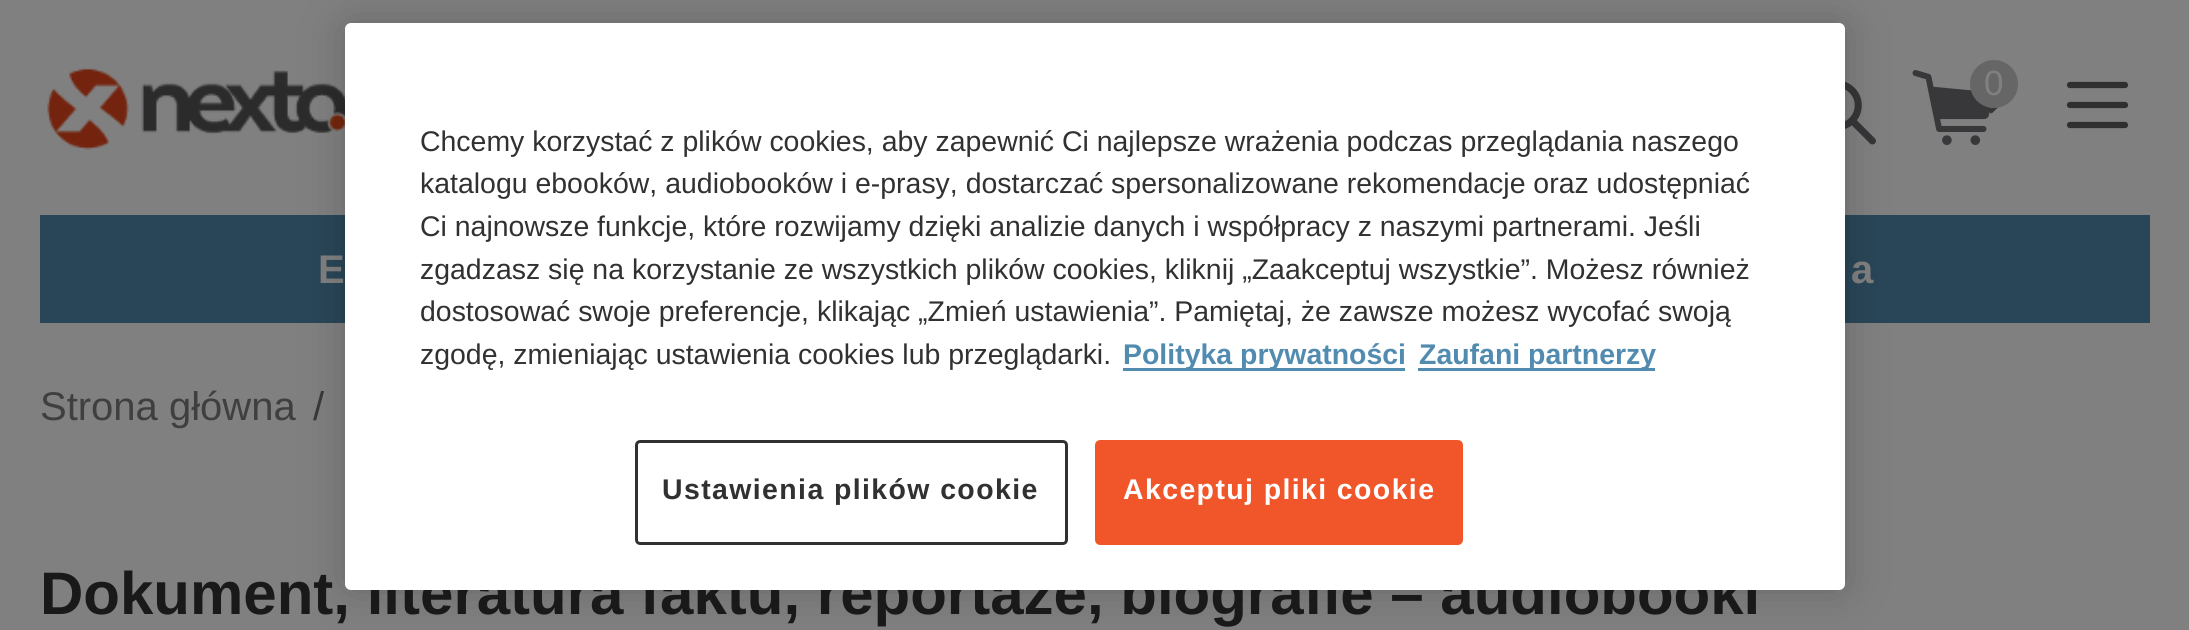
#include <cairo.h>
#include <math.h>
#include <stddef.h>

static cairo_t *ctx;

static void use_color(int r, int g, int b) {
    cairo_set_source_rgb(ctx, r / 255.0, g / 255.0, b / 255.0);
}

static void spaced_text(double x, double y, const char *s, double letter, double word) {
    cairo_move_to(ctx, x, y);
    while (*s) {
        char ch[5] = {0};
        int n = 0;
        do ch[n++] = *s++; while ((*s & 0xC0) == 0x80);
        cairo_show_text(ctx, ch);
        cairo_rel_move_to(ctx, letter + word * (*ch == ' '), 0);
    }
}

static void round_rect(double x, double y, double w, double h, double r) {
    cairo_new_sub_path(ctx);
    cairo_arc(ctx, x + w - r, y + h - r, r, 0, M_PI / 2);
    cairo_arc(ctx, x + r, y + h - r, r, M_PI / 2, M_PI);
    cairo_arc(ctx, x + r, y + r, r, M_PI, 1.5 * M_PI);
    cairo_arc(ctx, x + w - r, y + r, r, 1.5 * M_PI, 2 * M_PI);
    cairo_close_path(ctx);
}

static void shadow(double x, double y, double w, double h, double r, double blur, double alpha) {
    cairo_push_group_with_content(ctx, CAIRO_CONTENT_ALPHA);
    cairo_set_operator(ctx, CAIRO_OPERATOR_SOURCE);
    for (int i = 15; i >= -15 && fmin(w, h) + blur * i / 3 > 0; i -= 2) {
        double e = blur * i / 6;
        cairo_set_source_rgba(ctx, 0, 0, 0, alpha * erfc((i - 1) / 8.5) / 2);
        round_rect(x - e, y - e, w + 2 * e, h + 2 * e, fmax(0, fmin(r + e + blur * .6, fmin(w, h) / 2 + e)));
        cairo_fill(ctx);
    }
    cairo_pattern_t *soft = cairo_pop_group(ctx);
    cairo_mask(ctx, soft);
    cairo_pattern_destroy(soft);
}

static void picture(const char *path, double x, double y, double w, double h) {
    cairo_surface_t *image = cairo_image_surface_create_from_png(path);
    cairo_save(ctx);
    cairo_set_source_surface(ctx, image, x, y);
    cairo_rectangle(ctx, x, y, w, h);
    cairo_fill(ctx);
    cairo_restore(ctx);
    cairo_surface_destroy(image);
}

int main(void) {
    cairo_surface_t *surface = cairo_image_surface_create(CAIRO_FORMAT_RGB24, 2189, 630);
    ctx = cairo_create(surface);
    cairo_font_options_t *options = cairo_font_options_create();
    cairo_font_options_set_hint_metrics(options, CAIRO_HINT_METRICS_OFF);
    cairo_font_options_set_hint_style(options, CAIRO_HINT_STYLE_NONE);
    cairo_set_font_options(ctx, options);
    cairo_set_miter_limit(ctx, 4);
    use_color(128, 128, 128);
    cairo_paint(ctx);
    picture("img1.png", 47, 68, 298, 82);
    picture("img2.png", 1845, 81, 31, 64);
    picture("img3.png", 1989, 107, 10, 7);
    picture("img4.png", 1912, 70, 79, 75);
    use_color(102, 102, 102);
    cairo_arc(ctx, 1994, 84, 24, 0, 2 * M_PI);
    cairo_fill(ctx);
    cairo_select_font_face(ctx, "Liberation Sans", CAIRO_FONT_SLANT_NORMAL, CAIRO_FONT_WEIGHT_NORMAL);
    cairo_set_font_size(ctx, 35);
    use_color(128, 128, 128);
    cairo_move_to(ctx, 1984, 95);
    cairo_show_text(ctx, "0");
    cairo_new_path(ctx);
    cairo_move_to(ctx, 2070, 85);
    cairo_line_to(ctx, 2125, 85);
    cairo_move_to(ctx, 2070, 105);
    cairo_line_to(ctx, 2125, 105);
    cairo_move_to(ctx, 2070, 125);
    cairo_line_to(ctx, 2125, 125);
    use_color(47, 47, 47);
    cairo_set_line_width(ctx, 6.2);
    cairo_set_line_cap(ctx, CAIRO_LINE_CAP_ROUND);
    cairo_set_line_join(ctx, CAIRO_LINE_JOIN_ROUND);
    cairo_stroke(ctx);
    use_color(41, 70, 88);
    cairo_rectangle(ctx, 40, 215, 305, 108);
    cairo_fill(ctx);
    cairo_select_font_face(ctx, "Liberation Sans", CAIRO_FONT_SLANT_NORMAL, CAIRO_FONT_WEIGHT_BOLD);
    cairo_set_font_size(ctx, 40);
    use_color(128, 128, 128);
    cairo_move_to(ctx, 318, 283);
    cairo_show_text(ctx, "E");
    use_color(41, 70, 88);
    cairo_rectangle(ctx, 1845, 215, 305, 108);
    cairo_fill(ctx);
    use_color(128, 128, 128);
    cairo_move_to(ctx, 1851, 283);
    cairo_show_text(ctx, "a");
    use_color(0, 0, 0);
    shadow(345, 23, 1500, 567, 6, 22.5, 0.2);
    cairo_set_font_size(ctx, 60);
    use_color(25, 25, 25);
    cairo_move_to(ctx, 40, 614);
    cairo_show_text(ctx, "Dokument, literatura faktu, reportaże, biografie – audiobooki");
    use_color(255, 255, 255);
    round_rect(345, 23, 1500, 567, 6);
    cairo_fill(ctx);
    cairo_select_font_face(ctx, "Liberation Sans", CAIRO_FONT_SLANT_NORMAL, CAIRO_FONT_WEIGHT_NORMAL);
    cairo_set_font_size(ctx, 28.45);
    use_color(49, 49, 49);
    cairo_move_to(ctx, 420, 151);
    cairo_show_text(ctx, "Chcemy korzystać z plików cookies, aby zapewnić Ci najlepsze wrażenia podczas przeglądania naszego");
    cairo_move_to(ctx, 420, 193);
    cairo_show_text(ctx, "katalogu ebooków, audiobooków i e-prasy, dostarczać spersonalizowane rekomendacje oraz udostępniać");
    cairo_move_to(ctx, 420, 236);
    cairo_show_text(ctx, "Ci najnowsze funkcje, które rozwijamy dzięki analizie danych i współpracy z naszymi partnerami. Jeśli");
    cairo_move_to(ctx, 420, 279);
    cairo_show_text(ctx, "zgadzasz się na korzystanie ze wszystkich plików cookies, kliknij „Zaakceptuj wszystkie”. Możesz również");
    cairo_move_to(ctx, 420, 321);
    cairo_show_text(ctx, "dostosować swoje preferencje, klikając „Zmień ustawienia”. Pamiętaj, że zawsze możesz wycofać swoją");
    cairo_move_to(ctx, 420, 364);
    cairo_show_text(ctx, "zgodę, zmieniając ustawienia cookies lub przeglądarki.");
    use_color(81, 139, 175);
    cairo_rectangle(ctx, 1123, 368, 282, 3);
    cairo_fill(ctx);
    cairo_select_font_face(ctx, "Liberation Sans", CAIRO_FONT_SLANT_NORMAL, CAIRO_FONT_WEIGHT_BOLD);
    cairo_move_to(ctx, 1123, 364);
    cairo_show_text(ctx, "Polityka prywatności");
    cairo_rectangle(ctx, 1418, 368, 237, 3);
    cairo_fill(ctx);
    cairo_move_to(ctx, 1419, 364);
    cairo_show_text(ctx, "Zaufani partnerzy");
    round_rect(636.5, 441.5, 430, 102, 3.5);
    use_color(49, 49, 49);
    cairo_set_line_width(ctx, 3);
    cairo_set_line_cap(ctx, CAIRO_LINE_CAP_BUTT);
    cairo_set_line_join(ctx, CAIRO_LINE_JOIN_MITER);
    cairo_stroke(ctx);
    spaced_text(662, 499, "Ustawienia plików cookie", 1.4, 0);
    use_color(241, 86, 42);
    round_rect(1096.5, 441.5, 365, 102, 3.5);
    cairo_fill_preserve(ctx);
    cairo_stroke(ctx);
    use_color(255, 255, 255);
    spaced_text(1123, 499, "Akceptuj pliki cookie", 1.4, 0);
    cairo_select_font_face(ctx, "Liberation Sans", CAIRO_FONT_SLANT_NORMAL, CAIRO_FONT_WEIGHT_NORMAL);
    cairo_set_font_size(ctx, 40);
    use_color(63, 63, 63);
    cairo_move_to(ctx, 40, 420);
    cairo_show_text(ctx, "Strona główna");
    use_color(55, 55, 56);
    cairo_move_to(ctx, 313, 420);
    cairo_show_text(ctx, "/");
    cairo_surface_write_to_png(surface, "result.png");
    cairo_font_options_destroy(options);
    cairo_destroy(ctx);
    cairo_surface_destroy(surface);
    return 0;
}
